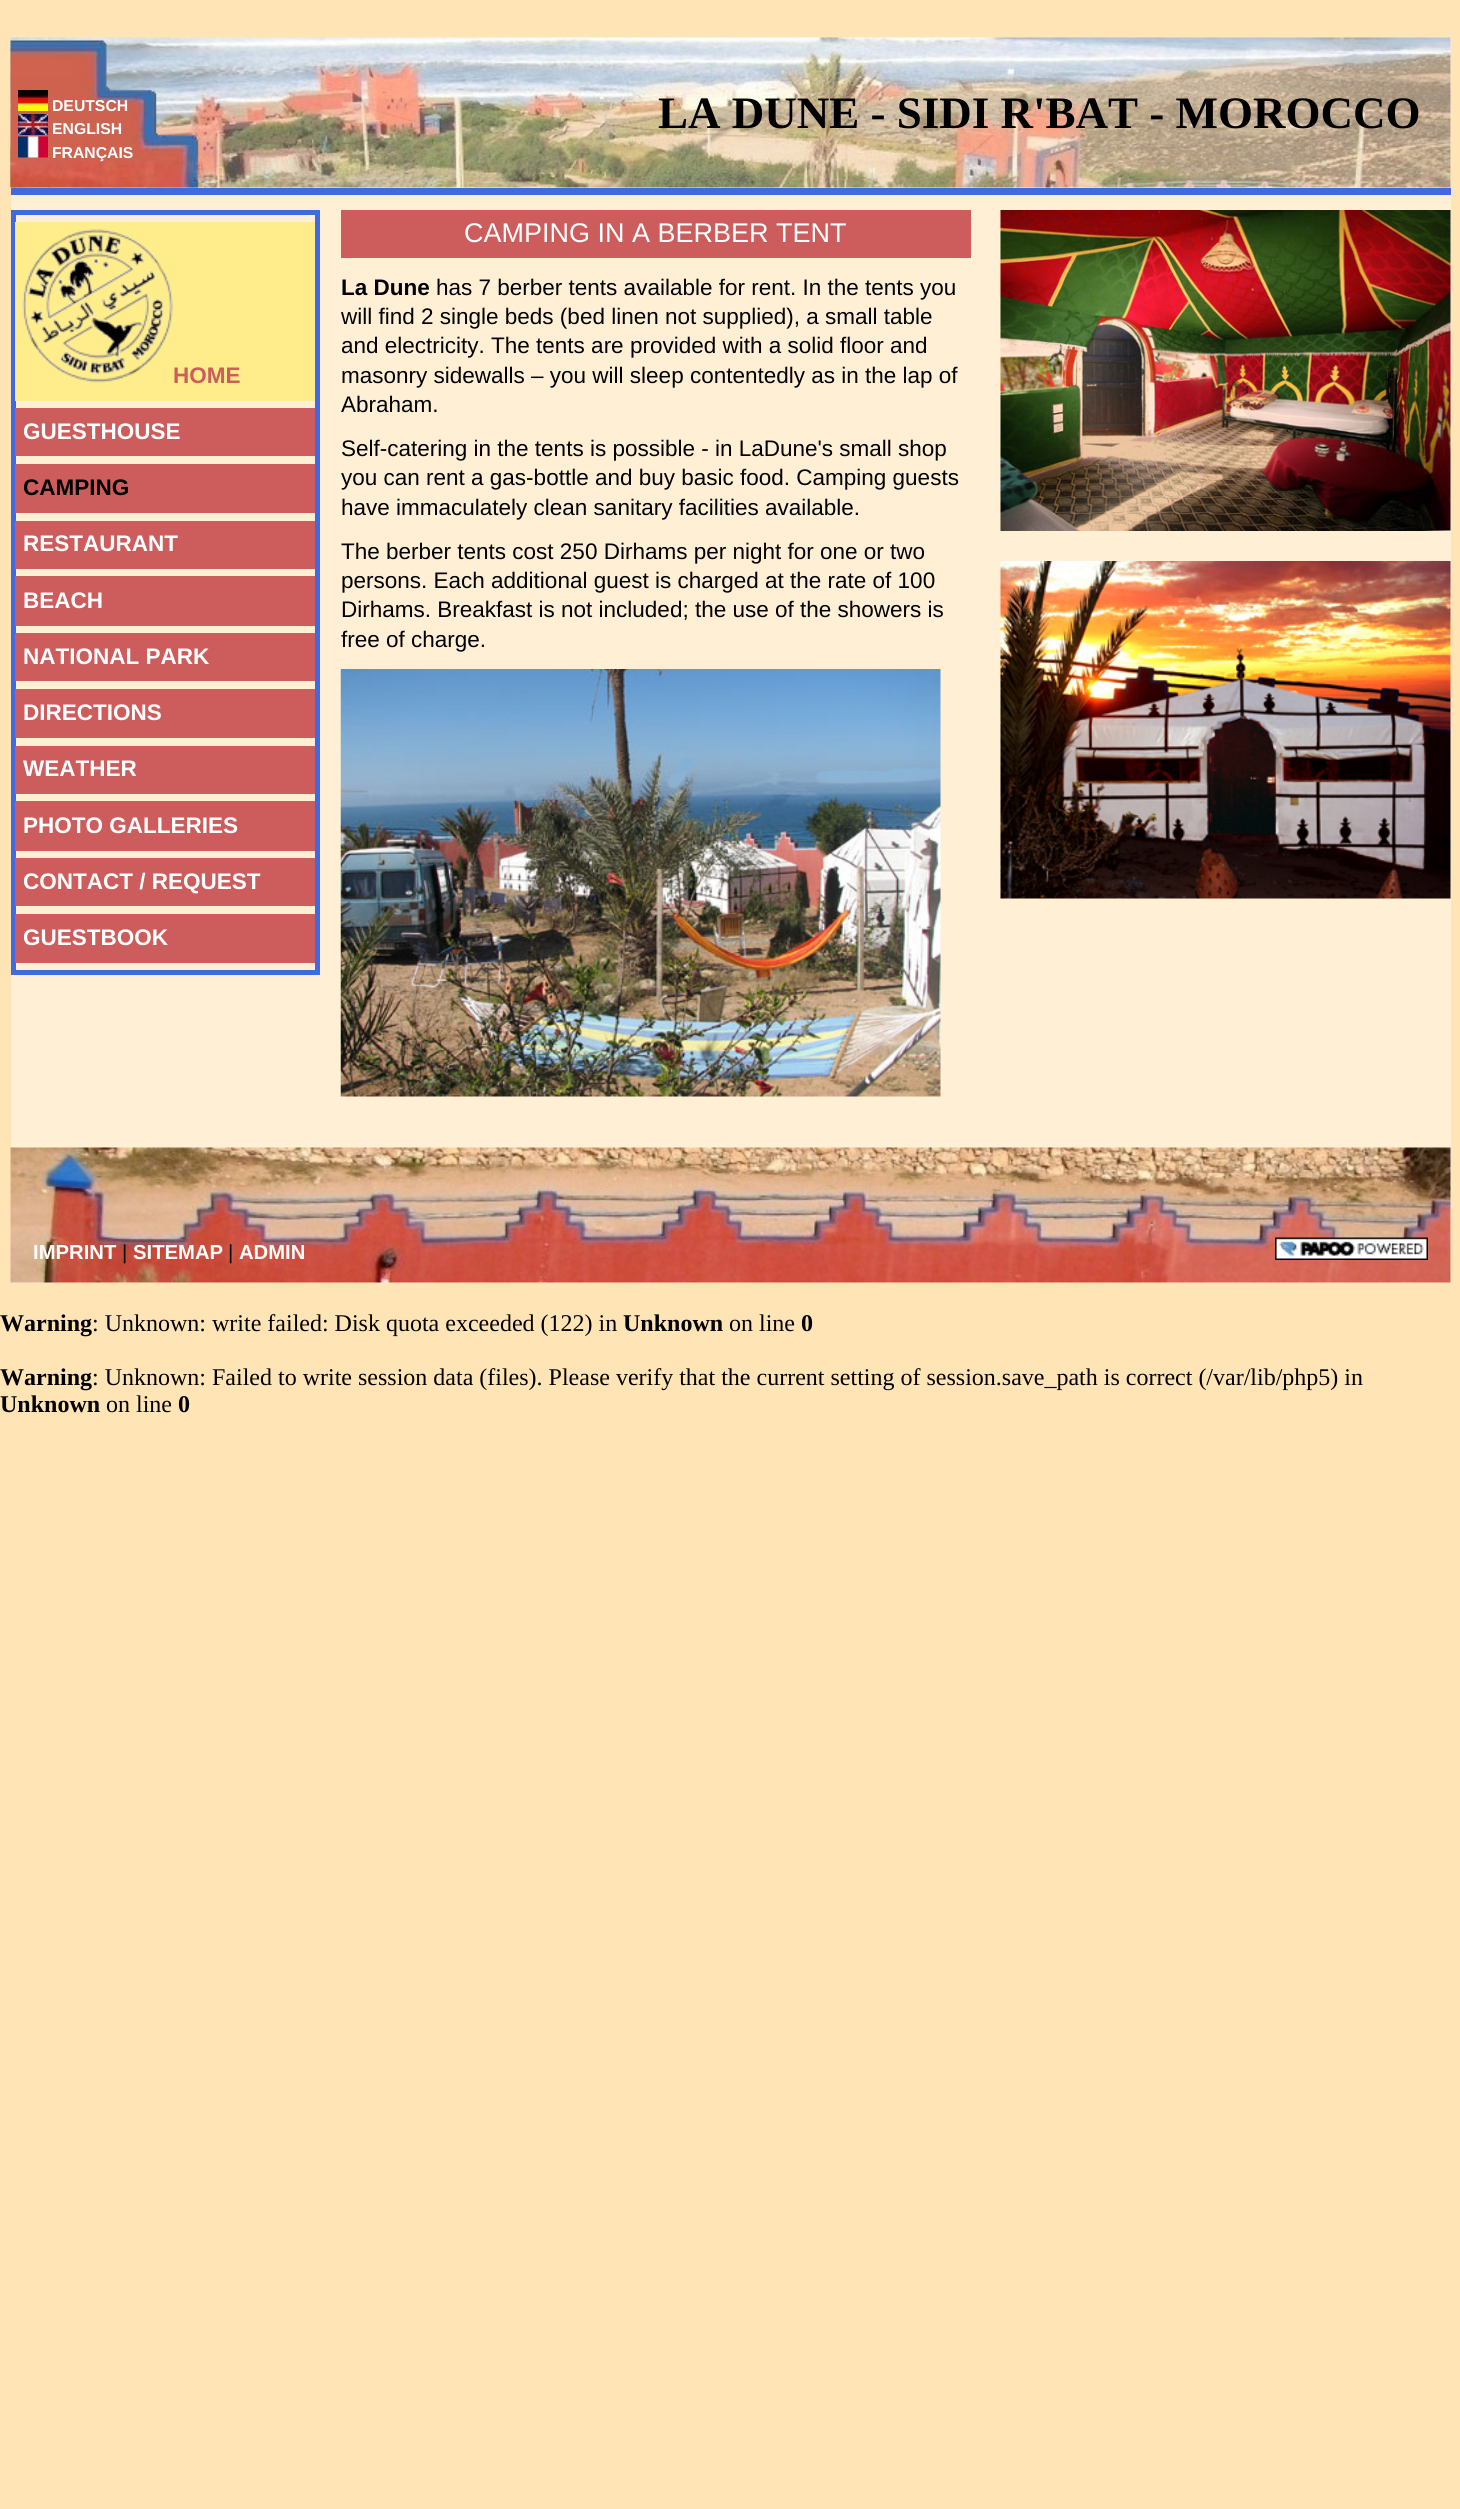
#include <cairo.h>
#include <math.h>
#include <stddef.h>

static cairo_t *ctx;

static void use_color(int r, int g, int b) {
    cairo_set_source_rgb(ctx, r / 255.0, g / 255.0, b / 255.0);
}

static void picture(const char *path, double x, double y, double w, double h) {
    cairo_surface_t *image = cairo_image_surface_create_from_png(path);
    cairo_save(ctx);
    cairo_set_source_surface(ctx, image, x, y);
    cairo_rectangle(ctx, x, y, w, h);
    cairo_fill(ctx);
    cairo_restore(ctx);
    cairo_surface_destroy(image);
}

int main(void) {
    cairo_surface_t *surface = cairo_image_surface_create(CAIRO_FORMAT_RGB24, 1460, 2509);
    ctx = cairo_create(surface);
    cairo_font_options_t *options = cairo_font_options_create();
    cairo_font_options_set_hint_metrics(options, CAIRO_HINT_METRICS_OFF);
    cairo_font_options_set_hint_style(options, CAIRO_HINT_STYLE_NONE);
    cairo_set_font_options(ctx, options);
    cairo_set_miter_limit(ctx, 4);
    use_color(255, 228, 181);
    cairo_paint(ctx);
    use_color(255, 239, 213);
    cairo_rectangle(ctx, 11, 38, 1440, 1245);
    cairo_fill(ctx);
    picture("img1.png", 10, 37, 1441, 151);
    use_color(65, 105, 225);
    cairo_rectangle(ctx, 11, 188, 1440, 7);
    cairo_fill(ctx);
    picture("img2.png", 10, 40, 189, 148);
    picture("img3.png", 18, 90, 30, 21);
    cairo_select_font_face(ctx, "Liberation Sans", CAIRO_FONT_SLANT_NORMAL, CAIRO_FONT_WEIGHT_BOLD);
    cairo_set_font_size(ctx, 15.75);
    use_color(255, 255, 255);
    cairo_move_to(ctx, 52, 111);
    cairo_show_text(ctx, "DEUTSCH");
    picture("img4.png", 18, 114, 30, 21);
    cairo_move_to(ctx, 52, 134);
    cairo_show_text(ctx, "ENGLISH");
    picture("img5.png", 18, 136, 30, 22);
    cairo_move_to(ctx, 52, 158);
    cairo_show_text(ctx, "FRANÇAIS");
    cairo_select_font_face(ctx, "Liberation Serif", CAIRO_FONT_SLANT_NORMAL, CAIRO_FONT_WEIGHT_BOLD);
    cairo_set_font_size(ctx, 45);
    use_color(0, 0, 0);
    cairo_move_to(ctx, 658, 128);
    cairo_show_text(ctx, "LA DUNE - SIDI R'BAT - MOROCCO");
    cairo_rectangle(ctx, 13.5, 212.5, 304, 760);
    use_color(65, 105, 225);
    cairo_set_line_width(ctx, 5);
    cairo_stroke(ctx);
    use_color(255, 236, 139);
    cairo_rectangle(ctx, 15, 222, 300, 179);
    cairo_fill(ctx);
    picture("img6.png", 22, 229, 151, 154);
    cairo_select_font_face(ctx, "Liberation Sans", CAIRO_FONT_SLANT_NORMAL, CAIRO_FONT_WEIGHT_BOLD);
    cairo_set_font_size(ctx, 22.5);
    use_color(205, 92, 92);
    cairo_move_to(ctx, 173, 383);
    cairo_show_text(ctx, "HOME");
    cairo_rectangle(ctx, 15, 408, 300, 48);
    cairo_fill(ctx);
    use_color(255, 255, 255);
    cairo_move_to(ctx, 23, 439);
    cairo_show_text(ctx, "GUESTHOUSE");
    use_color(205, 92, 92);
    cairo_rectangle(ctx, 15, 464, 300, 49);
    cairo_fill(ctx);
    use_color(0, 0, 0);
    cairo_move_to(ctx, 23, 495);
    cairo_show_text(ctx, "CAMPING");
    use_color(205, 92, 92);
    cairo_rectangle(ctx, 15, 521, 300, 48);
    cairo_fill(ctx);
    use_color(255, 255, 255);
    cairo_move_to(ctx, 23, 551);
    cairo_show_text(ctx, "RESTAURANT");
    use_color(205, 92, 92);
    cairo_rectangle(ctx, 15, 576, 300, 50);
    cairo_fill(ctx);
    use_color(255, 255, 255);
    cairo_move_to(ctx, 23, 608);
    cairo_show_text(ctx, "BEACH");
    use_color(205, 92, 92);
    cairo_rectangle(ctx, 15, 633, 300, 48);
    cairo_fill(ctx);
    use_color(255, 255, 255);
    cairo_move_to(ctx, 23, 664);
    cairo_show_text(ctx, "NATIONAL PARK");
    use_color(205, 92, 92);
    cairo_rectangle(ctx, 15, 689, 300, 49);
    cairo_fill(ctx);
    use_color(255, 255, 255);
    cairo_move_to(ctx, 23, 720);
    cairo_show_text(ctx, "DIRECTIONS");
    use_color(205, 92, 92);
    cairo_rectangle(ctx, 15, 746, 300, 48);
    cairo_fill(ctx);
    use_color(255, 255, 255);
    cairo_move_to(ctx, 23, 776);
    cairo_show_text(ctx, "WEATHER");
    use_color(205, 92, 92);
    cairo_rectangle(ctx, 15, 801, 300, 50);
    cairo_fill(ctx);
    use_color(255, 255, 255);
    cairo_move_to(ctx, 23, 833);
    cairo_show_text(ctx, "PHOTO GALLERIES");
    use_color(205, 92, 92);
    cairo_rectangle(ctx, 15, 858, 300, 48);
    cairo_fill(ctx);
    use_color(255, 255, 255);
    cairo_move_to(ctx, 23, 889);
    cairo_show_text(ctx, "CONTACT / REQUEST");
    use_color(205, 92, 92);
    cairo_rectangle(ctx, 15, 914, 300, 49);
    cairo_fill(ctx);
    use_color(255, 255, 255);
    cairo_move_to(ctx, 23, 945);
    cairo_show_text(ctx, "GUESTBOOK");
    use_color(205, 92, 92);
    cairo_rectangle(ctx, 341, 210, 630, 48);
    cairo_fill(ctx);
    cairo_select_font_face(ctx, "Liberation Sans", CAIRO_FONT_SLANT_NORMAL, CAIRO_FONT_WEIGHT_NORMAL);
    cairo_set_font_size(ctx, 27);
    use_color(255, 255, 255);
    cairo_move_to(ctx, 464, 242);
    cairo_show_text(ctx, "CAMPING IN A BERBER TENT");
    cairo_select_font_face(ctx, "Liberation Sans", CAIRO_FONT_SLANT_NORMAL, CAIRO_FONT_WEIGHT_BOLD);
    cairo_set_font_size(ctx, 22.5);
    use_color(0, 0, 0);
    cairo_move_to(ctx, 341, 295);
    cairo_show_text(ctx, "La Dune");
    cairo_select_font_face(ctx, "Liberation Sans", CAIRO_FONT_SLANT_NORMAL, CAIRO_FONT_WEIGHT_NORMAL);
    cairo_move_to(ctx, 436, 295);
    cairo_show_text(ctx, "has 7 berber tents available for rent. In the tents you");
    cairo_move_to(ctx, 341, 324);
    cairo_show_text(ctx, "will find 2 single beds (bed linen not supplied), a small table");
    cairo_move_to(ctx, 341, 353);
    cairo_show_text(ctx, "and electricity. The tents are provided with a solid floor and");
    cairo_move_to(ctx, 341, 383);
    cairo_show_text(ctx, "masonry sidewalls – you will sleep contentedly as in the lap of");
    cairo_move_to(ctx, 341, 412);
    cairo_show_text(ctx, "Abraham.");
    cairo_move_to(ctx, 341, 456);
    cairo_show_text(ctx, "Self-catering in the tents is possible - in LaDune's small shop");
    cairo_move_to(ctx, 341, 485);
    cairo_show_text(ctx, "you can rent a gas-bottle and buy basic food. Camping guests");
    cairo_move_to(ctx, 341, 515);
    cairo_show_text(ctx, "have immaculately clean sanitary facilities available.");
    cairo_move_to(ctx, 341, 559);
    cairo_show_text(ctx, "The berber tents cost 250 Dirhams per night for one or two");
    cairo_move_to(ctx, 341, 588);
    cairo_show_text(ctx, "persons. Each additional guest is charged at the rate of 100");
    cairo_move_to(ctx, 341, 617);
    cairo_show_text(ctx, "Dirhams. Breakfast is not included; the use of the showers is");
    cairo_move_to(ctx, 341, 647);
    cairo_show_text(ctx, "free of charge.");
    picture("img7.png", 340, 669, 601, 428);
    picture("img8.png", 1000, 210, 451, 321);
    picture("img9.png", 1000, 561, 451, 338);
    picture("img10.png", 10, 1147, 1441, 136);
    cairo_select_font_face(ctx, "Liberation Sans", CAIRO_FONT_SLANT_NORMAL, CAIRO_FONT_WEIGHT_BOLD);
    cairo_set_font_size(ctx, 20.25);
    use_color(255, 255, 255);
    cairo_move_to(ctx, 33, 1259);
    cairo_show_text(ctx, "IMPRINT");
    cairo_select_font_face(ctx, "Liberation Sans", CAIRO_FONT_SLANT_NORMAL, CAIRO_FONT_WEIGHT_NORMAL);
    use_color(0, 0, 0);
    cairo_move_to(ctx, 122, 1259);
    cairo_show_text(ctx, "|");
    cairo_select_font_face(ctx, "Liberation Sans", CAIRO_FONT_SLANT_NORMAL, CAIRO_FONT_WEIGHT_BOLD);
    use_color(255, 255, 255);
    cairo_move_to(ctx, 133, 1259);
    cairo_show_text(ctx, "SITEMAP");
    cairo_select_font_face(ctx, "Liberation Sans", CAIRO_FONT_SLANT_NORMAL, CAIRO_FONT_WEIGHT_NORMAL);
    use_color(0, 0, 0);
    cairo_move_to(ctx, 228, 1259);
    cairo_show_text(ctx, "|");
    cairo_select_font_face(ctx, "Liberation Sans", CAIRO_FONT_SLANT_NORMAL, CAIRO_FONT_WEIGHT_BOLD);
    use_color(255, 255, 255);
    cairo_move_to(ctx, 239, 1259);
    cairo_show_text(ctx, "ADMIN");
    picture("img11.png", 1275, 1237, 153, 23);
    cairo_select_font_face(ctx, "Liberation Serif", CAIRO_FONT_SLANT_NORMAL, CAIRO_FONT_WEIGHT_BOLD);
    cairo_set_font_size(ctx, 24);
    use_color(0, 0, 0);
    cairo_move_to(ctx, 0, 1331);
    cairo_show_text(ctx, "Warning");
    cairo_select_font_face(ctx, "Liberation Serif", CAIRO_FONT_SLANT_NORMAL, CAIRO_FONT_WEIGHT_NORMAL);
    cairo_move_to(ctx, 92, 1331);
    cairo_show_text(ctx, ": Unknown: write failed: Disk quota exceeded (122) in");
    cairo_select_font_face(ctx, "Liberation Serif", CAIRO_FONT_SLANT_NORMAL, CAIRO_FONT_WEIGHT_BOLD);
    cairo_move_to(ctx, 623, 1331);
    cairo_show_text(ctx, "Unknown");
    cairo_select_font_face(ctx, "Liberation Serif", CAIRO_FONT_SLANT_NORMAL, CAIRO_FONT_WEIGHT_NORMAL);
    cairo_move_to(ctx, 729, 1331);
    cairo_show_text(ctx, "on line");
    cairo_select_font_face(ctx, "Liberation Serif", CAIRO_FONT_SLANT_NORMAL, CAIRO_FONT_WEIGHT_BOLD);
    cairo_move_to(ctx, 801, 1331);
    cairo_show_text(ctx, "0");
    cairo_move_to(ctx, 0, 1385);
    cairo_show_text(ctx, "Warning");
    cairo_select_font_face(ctx, "Liberation Serif", CAIRO_FONT_SLANT_NORMAL, CAIRO_FONT_WEIGHT_NORMAL);
    cairo_move_to(ctx, 92, 1385);
    cairo_show_text(ctx, ": Unknown: Failed to write session data (files). Please verify that the current setting of session.save_path is correct (/var/lib/php5) in");
    cairo_select_font_face(ctx, "Liberation Serif", CAIRO_FONT_SLANT_NORMAL, CAIRO_FONT_WEIGHT_BOLD);
    cairo_move_to(ctx, 0, 1412);
    cairo_show_text(ctx, "Unknown");
    cairo_select_font_face(ctx, "Liberation Serif", CAIRO_FONT_SLANT_NORMAL, CAIRO_FONT_WEIGHT_NORMAL);
    cairo_move_to(ctx, 106, 1412);
    cairo_show_text(ctx, "on line");
    cairo_select_font_face(ctx, "Liberation Serif", CAIRO_FONT_SLANT_NORMAL, CAIRO_FONT_WEIGHT_BOLD);
    cairo_move_to(ctx, 178, 1412);
    cairo_show_text(ctx, "0");
    cairo_surface_write_to_png(surface, "result.png");
    cairo_font_options_destroy(options);
    cairo_destroy(ctx);
    cairo_surface_destroy(surface);
    return 0;
}
